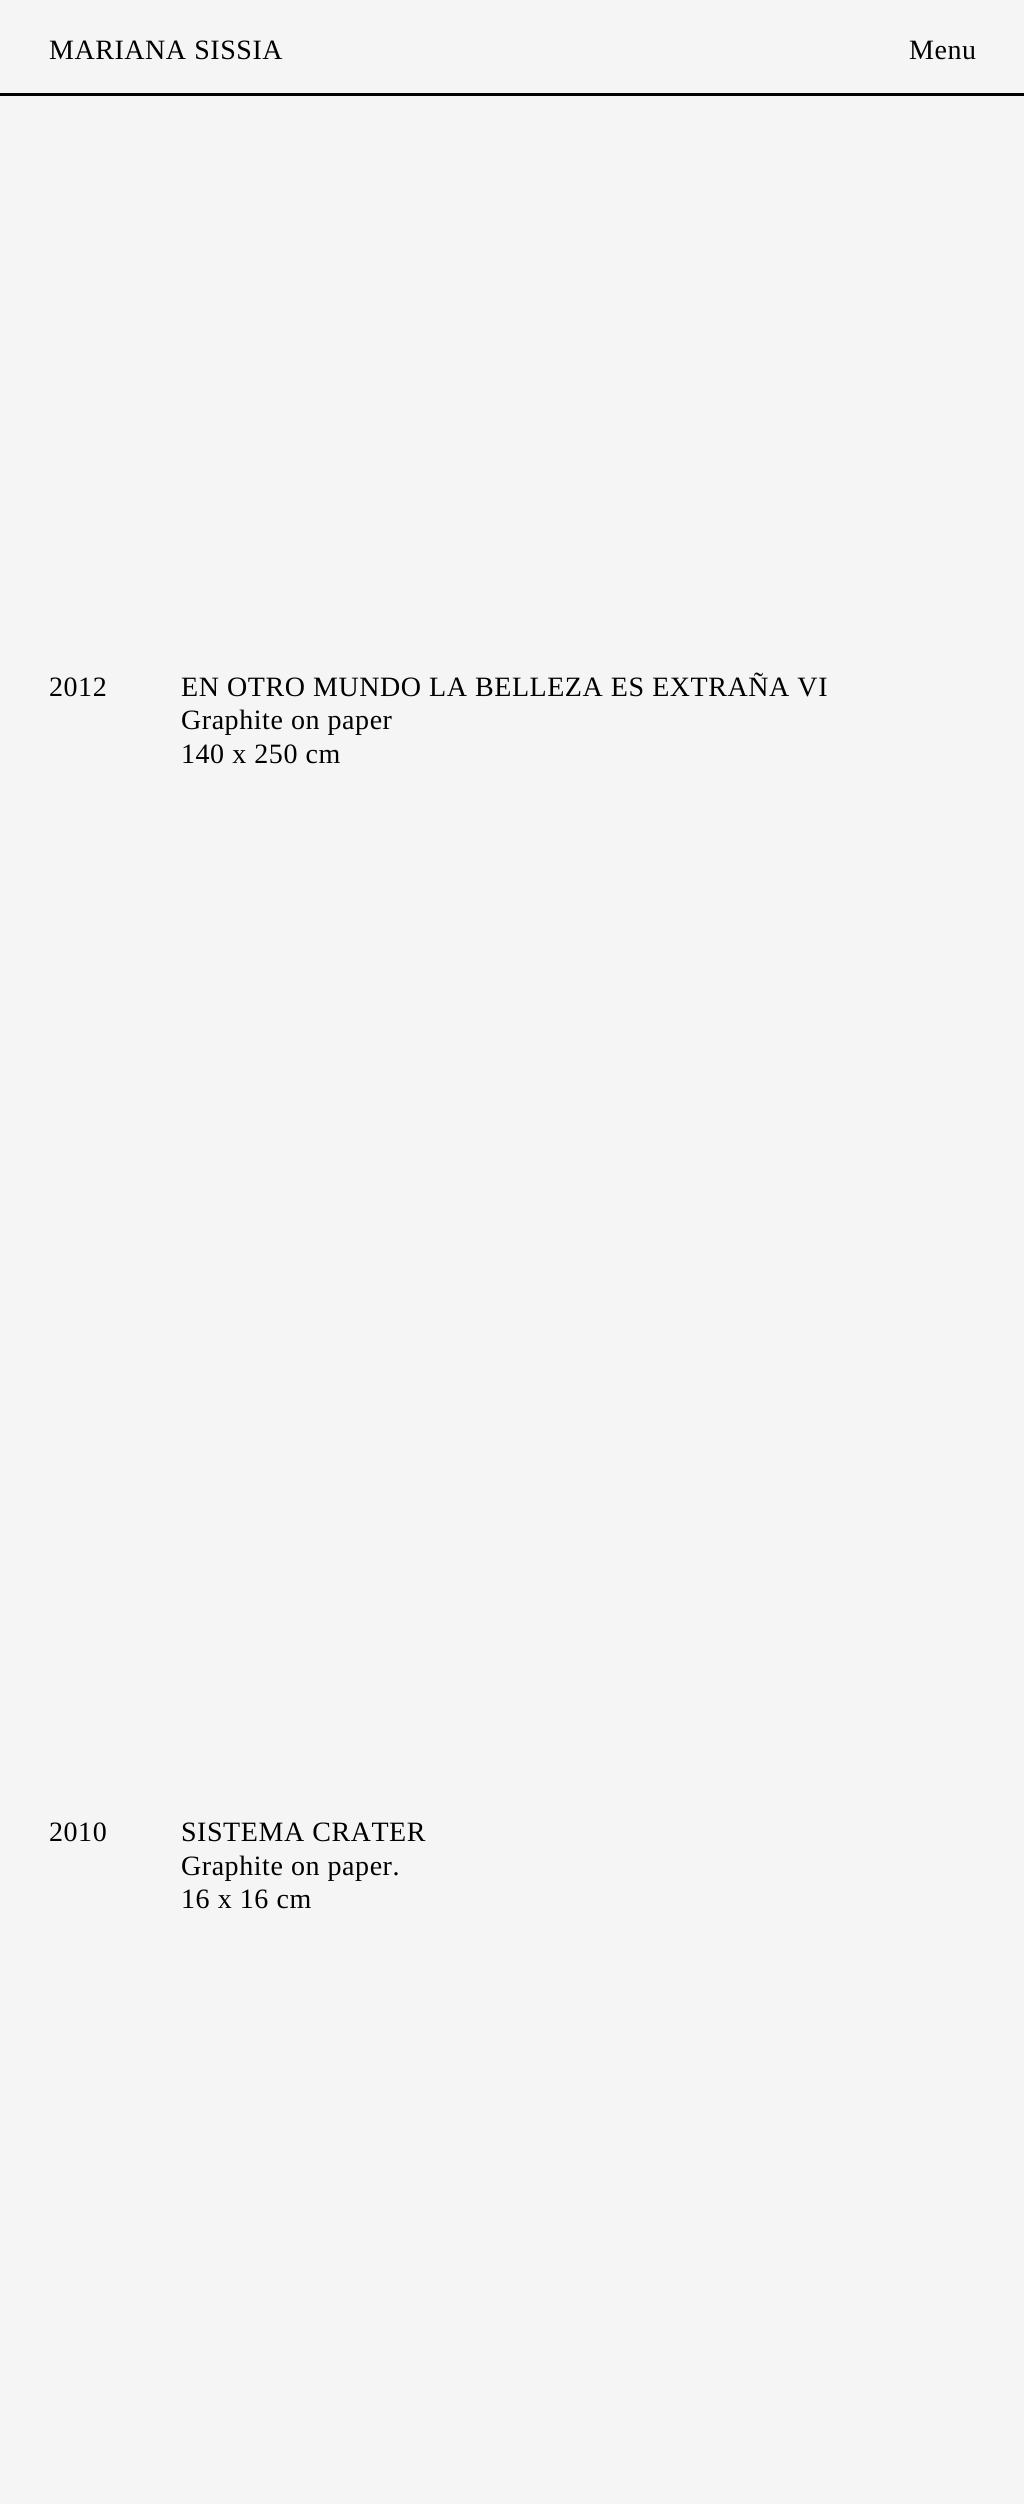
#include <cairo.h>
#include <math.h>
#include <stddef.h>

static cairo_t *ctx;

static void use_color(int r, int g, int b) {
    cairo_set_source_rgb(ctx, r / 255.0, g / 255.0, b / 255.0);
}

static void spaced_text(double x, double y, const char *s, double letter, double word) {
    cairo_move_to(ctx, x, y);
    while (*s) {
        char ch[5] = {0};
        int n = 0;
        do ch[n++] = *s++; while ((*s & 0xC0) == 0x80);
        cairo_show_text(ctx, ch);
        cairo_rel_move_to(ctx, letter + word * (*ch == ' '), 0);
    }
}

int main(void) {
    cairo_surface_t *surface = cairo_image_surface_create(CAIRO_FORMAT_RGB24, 1024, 2504);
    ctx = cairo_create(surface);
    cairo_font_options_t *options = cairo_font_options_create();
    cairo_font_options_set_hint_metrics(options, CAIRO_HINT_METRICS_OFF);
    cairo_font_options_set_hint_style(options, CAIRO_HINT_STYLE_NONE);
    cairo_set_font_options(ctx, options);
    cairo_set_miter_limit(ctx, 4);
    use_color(245, 245, 245);
    cairo_paint(ctx);
    use_color(0, 0, 0);
    cairo_rectangle(ctx, 0, 93, 1024, 3);
    cairo_fill(ctx);
    cairo_select_font_face(ctx, "Liberation Serif", CAIRO_FONT_SLANT_NORMAL, CAIRO_FONT_WEIGHT_NORMAL);
    cairo_set_font_size(ctx, 28);
    spaced_text(49, 59, "MARIANA SISSIA", 0.55, 0);
    spaced_text(909, 59, "Menu", 0.55, 0);
    spaced_text(49, 696, "2012", 0.55, 0);
    spaced_text(181, 696, "EN OTRO MUNDO LA BELLEZA ES EXTRAÑA VI", 0.55, 0);
    spaced_text(181, 729, "Graphite on paper", 0.55, 0);
    spaced_text(181, 763, "140 x 250 cm", 0.55, 0);
    spaced_text(49, 1841, "2010", 0.55, 0);
    spaced_text(181, 1841, "SISTEMA CRATER", 0.55, 0);
    spaced_text(181, 1875, "Graphite on paper.", 0.55, 0);
    spaced_text(181, 1908, "16 x 16 cm", 0.55, 0);
    cairo_surface_write_to_png(surface, "result.png");
    cairo_font_options_destroy(options);
    cairo_destroy(ctx);
    cairo_surface_destroy(surface);
    return 0;
}
